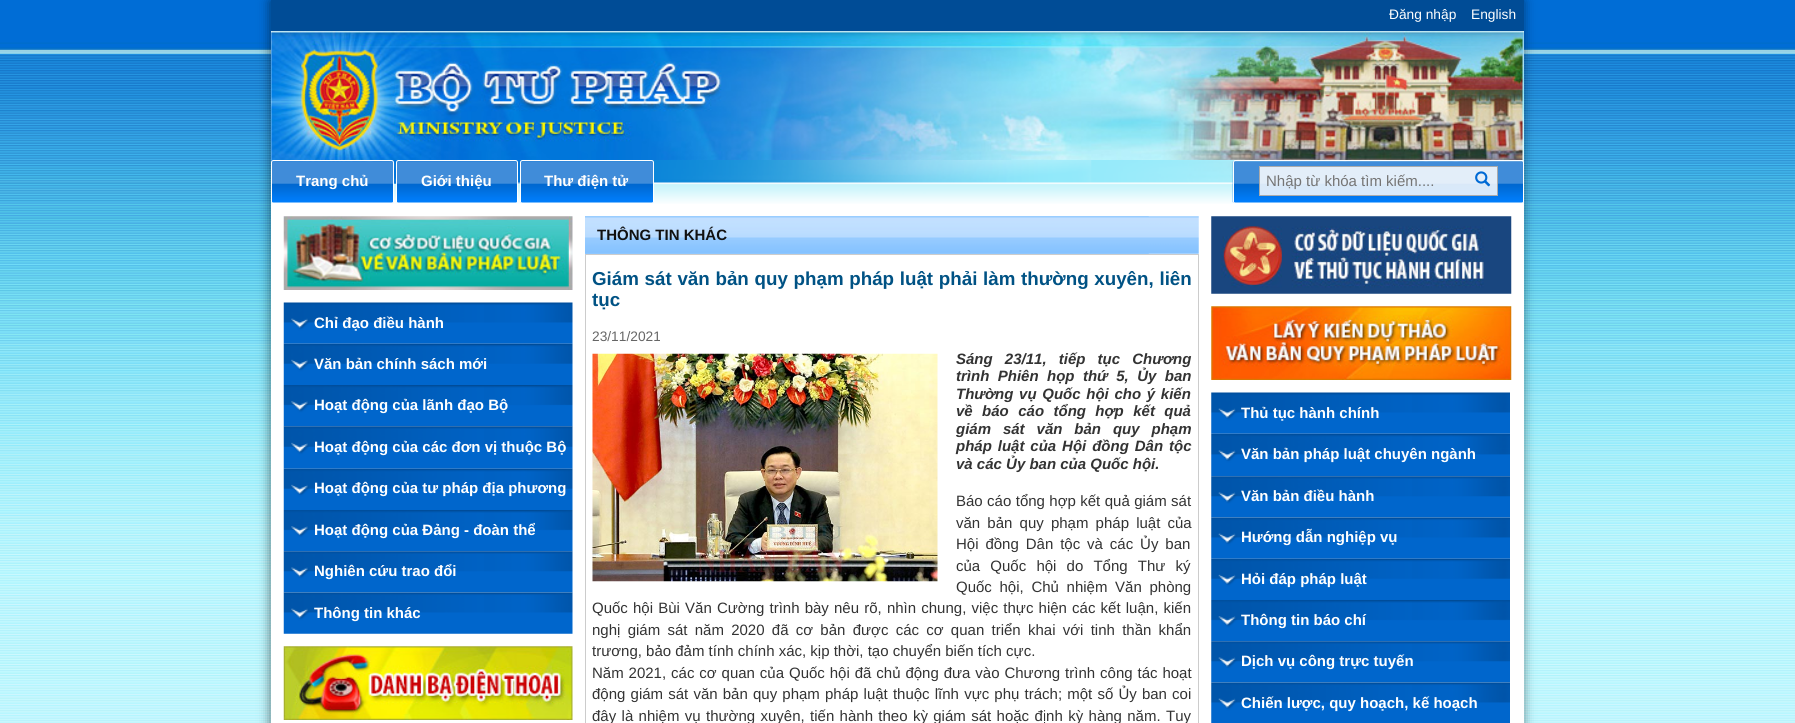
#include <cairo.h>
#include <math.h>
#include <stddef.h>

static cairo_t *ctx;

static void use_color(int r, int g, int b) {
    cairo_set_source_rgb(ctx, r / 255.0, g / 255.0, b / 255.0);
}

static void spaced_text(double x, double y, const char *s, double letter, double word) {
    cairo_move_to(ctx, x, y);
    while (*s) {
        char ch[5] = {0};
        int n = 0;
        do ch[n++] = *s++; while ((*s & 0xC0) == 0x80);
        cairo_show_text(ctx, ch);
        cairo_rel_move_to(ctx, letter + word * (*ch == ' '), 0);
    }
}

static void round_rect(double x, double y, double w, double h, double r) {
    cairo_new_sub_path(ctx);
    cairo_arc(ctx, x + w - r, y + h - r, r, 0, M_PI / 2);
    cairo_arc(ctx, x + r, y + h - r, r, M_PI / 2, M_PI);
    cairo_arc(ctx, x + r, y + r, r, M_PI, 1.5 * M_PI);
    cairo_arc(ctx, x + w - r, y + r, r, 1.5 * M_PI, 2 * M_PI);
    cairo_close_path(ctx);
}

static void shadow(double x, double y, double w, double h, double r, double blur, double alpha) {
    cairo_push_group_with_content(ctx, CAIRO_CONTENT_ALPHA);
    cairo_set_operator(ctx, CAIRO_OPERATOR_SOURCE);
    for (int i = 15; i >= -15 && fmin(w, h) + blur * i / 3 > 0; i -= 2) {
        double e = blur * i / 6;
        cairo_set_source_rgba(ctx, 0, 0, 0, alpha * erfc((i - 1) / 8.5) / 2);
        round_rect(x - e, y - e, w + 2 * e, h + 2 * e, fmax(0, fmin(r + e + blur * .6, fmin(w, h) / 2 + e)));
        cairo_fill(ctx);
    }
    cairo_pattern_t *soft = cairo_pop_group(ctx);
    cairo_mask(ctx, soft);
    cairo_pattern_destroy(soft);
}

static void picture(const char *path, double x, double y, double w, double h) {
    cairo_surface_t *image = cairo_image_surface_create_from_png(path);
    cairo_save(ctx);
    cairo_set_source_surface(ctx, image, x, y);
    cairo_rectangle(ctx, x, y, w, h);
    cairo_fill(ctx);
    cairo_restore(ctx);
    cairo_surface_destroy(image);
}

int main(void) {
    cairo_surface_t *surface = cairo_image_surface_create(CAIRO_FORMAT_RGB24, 1795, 723);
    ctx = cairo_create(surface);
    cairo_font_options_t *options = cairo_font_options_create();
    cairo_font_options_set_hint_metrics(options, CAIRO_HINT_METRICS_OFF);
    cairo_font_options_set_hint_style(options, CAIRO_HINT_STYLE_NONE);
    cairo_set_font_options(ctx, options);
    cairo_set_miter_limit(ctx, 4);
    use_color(255, 255, 255);
    cairo_paint(ctx);
    picture("img1.png", 0, 0, 1795, 723);
    use_color(0, 0, 0);
    shadow(270, 1, 1253, 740, 0, 6, 0.5);
    use_color(255, 255, 255);
    cairo_rectangle(ctx, 271, 31, 1253, 692);
    cairo_fill(ctx);
    use_color(0, 76, 150);
    cairo_rectangle(ctx, 271, 0, 1253, 31);
    cairo_fill(ctx);
    cairo_select_font_face(ctx, "Liberation Sans", CAIRO_FONT_SLANT_NORMAL, CAIRO_FONT_WEIGHT_NORMAL);
    cairo_set_font_size(ctx, 13.75);
    use_color(255, 255, 255);
    cairo_move_to(ctx, 1389, 19);
    cairo_show_text(ctx, "Đăng nhập");
    cairo_move_to(ctx, 1471, 19);
    cairo_show_text(ctx, "English");
    picture("img2.png", 271, 31, 1253, 129);
    picture("img3.png", 271, 160, 1253, 44);
    picture("img4.png", 271, 161, 123, 42);
    round_rect(271.5, 160.5, 122, 43, 2);
    cairo_set_line_width(ctx, 1);
    cairo_stroke(ctx);
    cairo_select_font_face(ctx, "Liberation Sans", CAIRO_FONT_SLANT_NORMAL, CAIRO_FONT_WEIGHT_BOLD);
    cairo_set_font_size(ctx, 15);
    cairo_move_to(ctx, 296, 186);
    cairo_show_text(ctx, "Trang chủ");
    picture("img5.png", 396, 161, 122, 42);
    round_rect(396.5, 160.5, 121, 43, 2);
    cairo_stroke(ctx);
    cairo_move_to(ctx, 421, 186);
    cairo_show_text(ctx, "Giới thiệu");
    picture("img6.png", 520, 161, 134, 42);
    round_rect(520.5, 160.5, 133, 43, 2);
    cairo_stroke(ctx);
    cairo_move_to(ctx, 544, 186);
    cairo_show_text(ctx, "Thư điện tử");
    picture("img7.png", 1232, 161, 292, 42);
    round_rect(1233.5, 160.5, 290, 43, 2);
    cairo_stroke(ctx);
    cairo_set_source_rgba(ctx, 1, 1, 1, 0.85);
    cairo_rectangle(ctx, 1259.5, 166.5, 238, 29);
    cairo_fill_preserve(ctx);
    use_color(171, 171, 171);
    cairo_stroke(ctx);
    cairo_select_font_face(ctx, "Liberation Sans", CAIRO_FONT_SLANT_NORMAL, CAIRO_FONT_WEIGHT_NORMAL);
    use_color(117, 117, 117);
    cairo_move_to(ctx, 1266, 186);
    cairo_show_text(ctx, "Nhập từ khóa tìm kiếm....");
    picture("img8.png", 1475, 171, 16, 16);
    picture("img9.png", 283, 216, 290, 74);
    picture("img10.png", 283, 302, 290, 42);
    cairo_select_font_face(ctx, "Liberation Sans", CAIRO_FONT_SLANT_NORMAL, CAIRO_FONT_WEIGHT_BOLD);
    use_color(255, 255, 255);
    cairo_move_to(ctx, 314, 328);
    cairo_show_text(ctx, "Chỉ đạo điều hành");
    picture("img11.png", 283, 343, 290, 42);
    cairo_move_to(ctx, 314, 369);
    cairo_show_text(ctx, "Văn bản chính sách mới");
    picture("img12.png", 283, 385, 290, 42);
    cairo_move_to(ctx, 314, 410);
    cairo_show_text(ctx, "Hoạt động của lãnh đạo Bộ");
    picture("img13.png", 283, 426, 290, 43);
    cairo_move_to(ctx, 314, 452);
    cairo_show_text(ctx, "Hoạt động của các đơn vị thuộc Bộ");
    picture("img11.png", 283, 468, 290, 42);
    cairo_move_to(ctx, 314, 493);
    cairo_show_text(ctx, "Hoạt động của tư pháp địa phương");
    picture("img12.png", 283, 510, 290, 42);
    cairo_move_to(ctx, 314, 535);
    cairo_show_text(ctx, "Hoạt động của Đảng - đoàn thể");
    picture("img14.png", 283, 551, 290, 42);
    cairo_move_to(ctx, 314, 576);
    cairo_show_text(ctx, "Nghiên cứu trao đổi");
    picture("img15.png", 283, 592, 290, 42);
    cairo_move_to(ctx, 314, 618);
    cairo_show_text(ctx, "Thông tin khác");
    picture("img16.png", 283, 646, 290, 74);
    picture("img17.png", 585, 216, 614, 38);
    picture("img18.png", 585, 216, 564, 38);
    use_color(17, 17, 17);
    cairo_move_to(ctx, 597, 240);
    cairo_show_text(ctx, "THÔNG TIN KHÁC");
    cairo_rectangle(ctx, 585.5, 254.5, 613, 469);
    use_color(204, 204, 204);
    cairo_stroke(ctx);
    cairo_set_font_size(ctx, 18.75);
    use_color(0, 82, 132);
    spaced_text(592, 285, "Giám sát văn bản quy phạm pháp luật phải làm thường xuyên, liên", 0, 0.5);
    cairo_move_to(ctx, 592, 306);
    cairo_show_text(ctx, "tục");
    cairo_select_font_face(ctx, "Liberation Sans", CAIRO_FONT_SLANT_NORMAL, CAIRO_FONT_WEIGHT_NORMAL);
    cairo_set_font_size(ctx, 13.75);
    use_color(102, 102, 102);
    cairo_move_to(ctx, 592, 341);
    cairo_show_text(ctx, "23/11/2021");
    picture("img19.png", 592, 353, 346, 229);
    cairo_select_font_face(ctx, "Liberation Sans", CAIRO_FONT_SLANT_ITALIC, CAIRO_FONT_WEIGHT_BOLD);
    cairo_set_font_size(ctx, 15);
    use_color(51, 51, 51);
    spaced_text(956, 364, "Sáng 23/11, tiếp tục Chương", 0, 8);
    spaced_text(956, 381, "trình Phiên họp thứ 5, Ủy ban", 0, 4.25);
    spaced_text(956, 399, "Thường vụ Quốc hội cho ý kiến", 0, 1.5);
    spaced_text(956, 416, "về báo cáo tổng hợp kết quả", 0, 5.25);
    spaced_text(956, 434, "giám sát văn bản quy phạm", 0, 7.75);
    spaced_text(956, 451, "pháp luật của Hội đồng Dân tộc", 0, 1.75);
    cairo_move_to(ctx, 956, 469);
    cairo_show_text(ctx, "và các Ủy ban của Quốc hội.");
    cairo_select_font_face(ctx, "Liberation Sans", CAIRO_FONT_SLANT_NORMAL, CAIRO_FONT_WEIGHT_NORMAL);
    spaced_text(956, 506, "Báo cáo tổng hợp kết quả giám sát", 0, 0.25);
    spaced_text(956, 528, "văn bản quy phạm pháp luật của", 0, 3);
    spaced_text(956, 549, "Hội đồng Dân tộc và các Ủy ban", 0, 2.75);
    spaced_text(956, 571, "của Quốc hội do Tổng Thư ký", 0, 6);
    spaced_text(956, 592, "Quốc hội, Chủ nhiệm Văn phòng", 0, 3.5);
    spaced_text(592, 613, "Quốc hội Bùi Văn Cường trình bày nêu rõ, nhìn chung, việc thực hiện các kết luận, kiến", 0, 1);
    spaced_text(592, 635, "nghị giám sát năm 2020 đã cơ bản được các cơ quan triển khai với tinh thần khẩn", 0, 3.1);
    cairo_move_to(ctx, 592, 656);
    cairo_show_text(ctx, "trương, bảo đảm tính chính xác, kịp thời, tạo chuyển biến tích cực.");
    spaced_text(592, 678, "Năm 2021, các cơ quan của Quốc hội đã chủ động đưa vào Chương trình công tác hoạt", 0, 0.75);
    spaced_text(592, 699, "động giám sát văn bản quy phạm pháp luật thuộc lĩnh vực phụ trách; một số Ủy ban coi", 0, 1);
    spaced_text(592, 721, "đây là nhiệm vụ thường xuyên, tiến hành theo kỳ giám sát hoặc định kỳ hàng năm. Tuy", 0, 1.2);
    picture("img20.png", 1211, 216, 301, 78);
    picture("img21.png", 1211, 306, 301, 74);
    picture("img22.png", 1211, 392, 299, 42);
    cairo_select_font_face(ctx, "Liberation Sans", CAIRO_FONT_SLANT_NORMAL, CAIRO_FONT_WEIGHT_BOLD);
    use_color(255, 255, 255);
    cairo_move_to(ctx, 1241, 418);
    cairo_show_text(ctx, "Thủ tục hành chính");
    picture("img23.png", 1211, 433, 299, 44);
    cairo_move_to(ctx, 1241, 459);
    cairo_show_text(ctx, "Văn bản pháp luật chuyên ngành");
    picture("img24.png", 1211, 476, 299, 42);
    cairo_move_to(ctx, 1241, 501);
    cairo_show_text(ctx, "Văn bản điều hành");
    picture("img25.png", 1211, 517, 299, 42);
    cairo_move_to(ctx, 1241, 542);
    cairo_show_text(ctx, "Hướng dẫn nghiệp vụ");
    picture("img26.png", 1211, 558, 299, 42);
    cairo_move_to(ctx, 1241, 584);
    cairo_show_text(ctx, "Hỏi đáp pháp luật");
    picture("img27.png", 1211, 600, 299, 42);
    cairo_move_to(ctx, 1241, 625);
    cairo_show_text(ctx, "Thông tin báo chí");
    picture("img24.png", 1211, 641, 299, 42);
    cairo_move_to(ctx, 1241, 666);
    cairo_show_text(ctx, "Dịch vụ công trực tuyến");
    picture("img28.png", 1211, 682, 299, 41);
    cairo_move_to(ctx, 1241, 708);
    cairo_show_text(ctx, "Chiến lược, quy hoạch, kế hoạch");
    cairo_surface_write_to_png(surface, "result.png");
    cairo_font_options_destroy(options);
    cairo_destroy(ctx);
    cairo_surface_destroy(surface);
    return 0;
}
